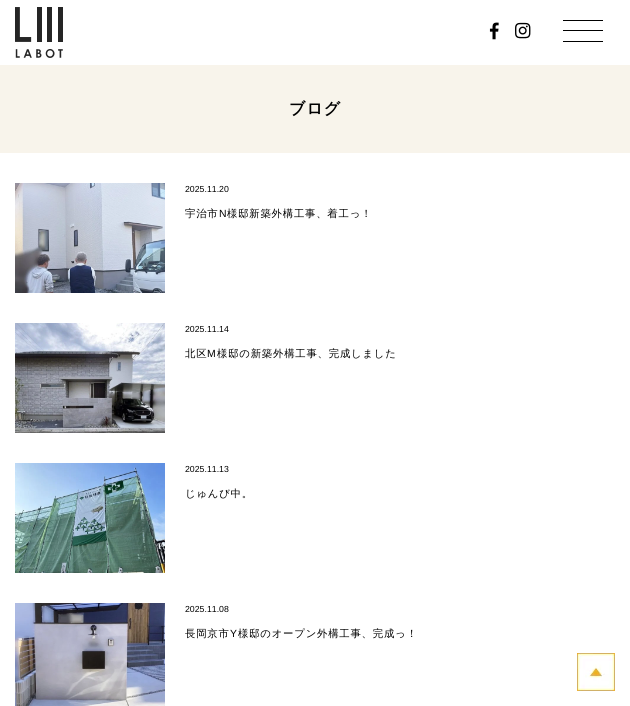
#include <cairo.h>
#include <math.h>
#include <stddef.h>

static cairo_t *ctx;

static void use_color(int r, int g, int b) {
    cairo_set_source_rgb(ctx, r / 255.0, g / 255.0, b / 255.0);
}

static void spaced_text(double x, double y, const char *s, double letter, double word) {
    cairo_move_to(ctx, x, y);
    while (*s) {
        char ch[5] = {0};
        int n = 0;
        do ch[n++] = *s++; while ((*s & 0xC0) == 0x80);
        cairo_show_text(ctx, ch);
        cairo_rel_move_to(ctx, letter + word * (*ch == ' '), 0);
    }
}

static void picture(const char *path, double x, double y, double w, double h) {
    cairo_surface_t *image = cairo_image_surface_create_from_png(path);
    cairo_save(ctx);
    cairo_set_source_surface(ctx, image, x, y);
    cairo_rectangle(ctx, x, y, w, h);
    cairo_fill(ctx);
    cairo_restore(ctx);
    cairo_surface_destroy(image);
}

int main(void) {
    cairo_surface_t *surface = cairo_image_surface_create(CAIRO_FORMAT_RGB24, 630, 706);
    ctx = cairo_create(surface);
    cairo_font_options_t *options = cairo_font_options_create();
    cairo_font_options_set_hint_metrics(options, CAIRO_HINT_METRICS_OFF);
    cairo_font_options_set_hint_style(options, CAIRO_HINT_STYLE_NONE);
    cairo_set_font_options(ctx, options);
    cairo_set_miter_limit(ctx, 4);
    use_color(255, 255, 255);
    cairo_paint(ctx);
    picture("img1.png", 15, 7, 48, 51);
    picture("img2.png", 489, 22, 10, 18);
    picture("img3.png", 515, 22, 16, 17);
    use_color(0, 0, 0);
    cairo_rectangle(ctx, 563, 20, 40, 1);
    cairo_fill(ctx);
    cairo_rectangle(ctx, 563, 30, 40, 1);
    cairo_fill(ctx);
    cairo_rectangle(ctx, 563, 41, 40, 1);
    cairo_fill(ctx);
    use_color(248, 244, 235);
    cairo_rectangle(ctx, 0, 65, 630, 88);
    cairo_fill(ctx);
    cairo_select_font_face(ctx, "WenQuanYi Zen Hei", CAIRO_FONT_SLANT_NORMAL, CAIRO_FONT_WEIGHT_BOLD);
    cairo_set_font_size(ctx, 16);
    use_color(0, 0, 0);
    spaced_text(289, 114, "ブログ", 1, 0);
    picture("img4.png", 15, 183, 150, 110);
    cairo_select_font_face(ctx, "Liberation Sans", CAIRO_FONT_SLANT_NORMAL, CAIRO_FONT_WEIGHT_NORMAL);
    cairo_set_font_size(ctx, 8.75);
    cairo_move_to(ctx, 185, 192);
    cairo_show_text(ctx, "2025.11.20");
    cairo_select_font_face(ctx, "WenQuanYi Zen Hei Medium", CAIRO_FONT_SLANT_NORMAL, CAIRO_FONT_WEIGHT_NORMAL);
    cairo_set_font_size(ctx, 10.4);
    spaced_text(185, 217, "宇治市", 0.75, 0);
    cairo_select_font_face(ctx, "Liberation Sans", CAIRO_FONT_SLANT_NORMAL, CAIRO_FONT_WEIGHT_NORMAL);
    spaced_text(219, 217, "N", 0.75, 0);
    cairo_select_font_face(ctx, "WenQuanYi Zen Hei Medium", CAIRO_FONT_SLANT_NORMAL, CAIRO_FONT_WEIGHT_NORMAL);
    spaced_text(227, 217, "様邸新築外構工事、着工っ！", 0.75, 0);
    picture("img5.png", 15, 323, 150, 110);
    cairo_select_font_face(ctx, "Liberation Sans", CAIRO_FONT_SLANT_NORMAL, CAIRO_FONT_WEIGHT_NORMAL);
    cairo_set_font_size(ctx, 8.75);
    cairo_move_to(ctx, 185, 332);
    cairo_show_text(ctx, "2025.11.14");
    cairo_select_font_face(ctx, "WenQuanYi Zen Hei Medium", CAIRO_FONT_SLANT_NORMAL, CAIRO_FONT_WEIGHT_NORMAL);
    cairo_set_font_size(ctx, 10.4);
    spaced_text(185, 357, "北区", 0.75, 0);
    cairo_select_font_face(ctx, "Liberation Sans", CAIRO_FONT_SLANT_NORMAL, CAIRO_FONT_WEIGHT_NORMAL);
    spaced_text(207, 357, "M", 0.75, 0);
    cairo_select_font_face(ctx, "WenQuanYi Zen Hei Medium", CAIRO_FONT_SLANT_NORMAL, CAIRO_FONT_WEIGHT_NORMAL);
    spaced_text(217, 357, "様邸の新築外構工事、完成しました", 0.75, 0);
    picture("img6.png", 15, 463, 150, 110);
    cairo_select_font_face(ctx, "Liberation Sans", CAIRO_FONT_SLANT_NORMAL, CAIRO_FONT_WEIGHT_NORMAL);
    cairo_set_font_size(ctx, 8.75);
    cairo_move_to(ctx, 185, 472);
    cairo_show_text(ctx, "2025.11.13");
    cairo_select_font_face(ctx, "WenQuanYi Zen Hei Medium", CAIRO_FONT_SLANT_NORMAL, CAIRO_FONT_WEIGHT_NORMAL);
    cairo_set_font_size(ctx, 10.4);
    spaced_text(185, 497, "じゅんび中。", 0.75, 0);
    picture("img7.png", 15, 603, 150, 103);
    cairo_select_font_face(ctx, "Liberation Sans", CAIRO_FONT_SLANT_NORMAL, CAIRO_FONT_WEIGHT_NORMAL);
    cairo_set_font_size(ctx, 8.75);
    cairo_move_to(ctx, 185, 612);
    cairo_show_text(ctx, "2025.11.08");
    cairo_select_font_face(ctx, "WenQuanYi Zen Hei Medium", CAIRO_FONT_SLANT_NORMAL, CAIRO_FONT_WEIGHT_NORMAL);
    cairo_set_font_size(ctx, 10.4);
    spaced_text(185, 637, "長岡京市", 0.75, 0);
    cairo_select_font_face(ctx, "Liberation Sans", CAIRO_FONT_SLANT_NORMAL, CAIRO_FONT_WEIGHT_NORMAL);
    spaced_text(230, 637, "Y", 0.75, 0);
    cairo_select_font_face(ctx, "WenQuanYi Zen Hei Medium", CAIRO_FONT_SLANT_NORMAL, CAIRO_FONT_WEIGHT_NORMAL);
    spaced_text(238, 637, "様邸のオープン外構工事、完成っ！", 0.75, 0);
    picture("img8.png", 577, 653, 38, 38);
    cairo_surface_write_to_png(surface, "result.png");
    cairo_font_options_destroy(options);
    cairo_destroy(ctx);
    cairo_surface_destroy(surface);
    return 0;
}
